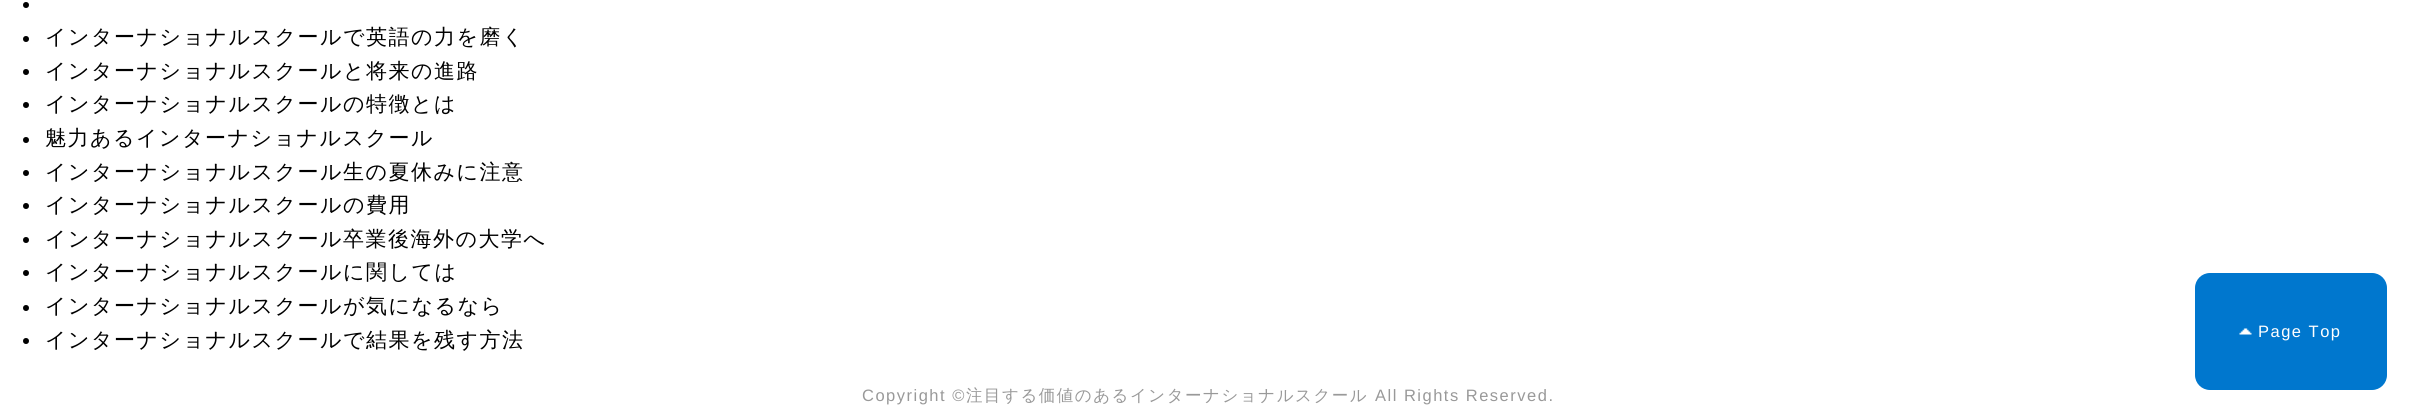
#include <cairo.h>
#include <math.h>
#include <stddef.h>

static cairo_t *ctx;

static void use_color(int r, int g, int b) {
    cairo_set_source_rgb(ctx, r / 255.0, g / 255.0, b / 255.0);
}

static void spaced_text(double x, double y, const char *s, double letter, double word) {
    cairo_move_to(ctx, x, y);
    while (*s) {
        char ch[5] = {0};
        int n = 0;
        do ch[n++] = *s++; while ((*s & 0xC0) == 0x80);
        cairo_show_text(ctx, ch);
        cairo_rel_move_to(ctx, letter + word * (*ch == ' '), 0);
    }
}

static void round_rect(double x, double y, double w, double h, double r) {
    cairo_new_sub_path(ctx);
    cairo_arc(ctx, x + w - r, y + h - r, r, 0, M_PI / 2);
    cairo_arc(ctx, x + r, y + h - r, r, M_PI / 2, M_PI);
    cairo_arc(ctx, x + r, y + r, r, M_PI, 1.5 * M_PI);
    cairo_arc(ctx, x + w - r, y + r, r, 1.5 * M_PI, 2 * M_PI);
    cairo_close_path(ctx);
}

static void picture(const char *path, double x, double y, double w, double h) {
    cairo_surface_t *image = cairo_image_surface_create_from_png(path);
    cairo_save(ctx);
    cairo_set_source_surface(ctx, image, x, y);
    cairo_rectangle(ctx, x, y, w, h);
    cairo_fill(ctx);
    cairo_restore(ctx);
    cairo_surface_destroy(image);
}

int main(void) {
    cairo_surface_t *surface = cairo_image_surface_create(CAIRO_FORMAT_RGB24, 2416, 420);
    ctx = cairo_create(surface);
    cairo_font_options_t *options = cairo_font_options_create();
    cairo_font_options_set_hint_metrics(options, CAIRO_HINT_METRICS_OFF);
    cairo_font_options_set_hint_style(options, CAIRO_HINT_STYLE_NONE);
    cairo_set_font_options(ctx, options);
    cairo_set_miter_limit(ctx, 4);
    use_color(255, 255, 255);
    cairo_paint(ctx);
    use_color(0, 0, 0);
    cairo_arc(ctx, 26, 5, 3, 0, 2 * M_PI);
    cairo_fill(ctx);
    cairo_arc(ctx, 26, 39, 3, 0, 2 * M_PI);
    cairo_fill(ctx);
    cairo_select_font_face(ctx, "WenQuanYi Zen Hei Medium", CAIRO_FONT_SLANT_NORMAL, CAIRO_FONT_WEIGHT_NORMAL);
    cairo_set_font_size(ctx, 21);
    spaced_text(45, 44, "インターナショナルスクールで英語の力を磨く", 1.5, 0);
    cairo_new_path(ctx);
    cairo_arc(ctx, 26, 72, 3, 0, 2 * M_PI);
    cairo_fill(ctx);
    spaced_text(45, 78, "インターナショナルスクールと将来の進路", 1.5, 0);
    cairo_new_path(ctx);
    cairo_arc(ctx, 26, 105, 3, 0, 2 * M_PI);
    cairo_fill(ctx);
    spaced_text(45, 111, "インターナショナルスクールの特徴とは", 1.5, 0);
    cairo_new_path(ctx);
    cairo_arc(ctx, 26, 140, 3, 0, 2 * M_PI);
    cairo_fill(ctx);
    spaced_text(45, 145, "魅力あるインターナショナルスクール", 1.5, 0);
    cairo_new_path(ctx);
    cairo_arc(ctx, 26, 173, 3, 0, 2 * M_PI);
    cairo_fill(ctx);
    spaced_text(45, 179, "インターナショナルスクール生の夏休みに注意", 1.5, 0);
    cairo_new_path(ctx);
    cairo_arc(ctx, 26, 206, 3, 0, 2 * M_PI);
    cairo_fill(ctx);
    spaced_text(45, 212, "インターナショナルスクールの費用", 1.5, 0);
    cairo_new_path(ctx);
    cairo_arc(ctx, 26, 240, 3, 0, 2 * M_PI);
    cairo_fill(ctx);
    spaced_text(45, 246, "インターナショナルスクール卒業後海外の大学へ", 1.5, 0);
    cairo_new_path(ctx);
    cairo_arc(ctx, 26, 273, 3, 0, 2 * M_PI);
    cairo_fill(ctx);
    spaced_text(45, 279, "インターナショナルスクールに関しては", 1.5, 0);
    cairo_new_path(ctx);
    cairo_arc(ctx, 26, 308, 3, 0, 2 * M_PI);
    cairo_fill(ctx);
    spaced_text(45, 313, "インターナショナルスクールが気になるなら", 1.5, 0);
    cairo_new_path(ctx);
    cairo_arc(ctx, 26, 341, 3, 0, 2 * M_PI);
    cairo_fill(ctx);
    spaced_text(45, 347, "インターナショナルスクールで結果を残す方法", 1.5, 0);
    cairo_select_font_face(ctx, "Liberation Sans", CAIRO_FONT_SLANT_NORMAL, CAIRO_FONT_WEIGHT_NORMAL);
    cairo_set_font_size(ctx, 16.5);
    use_color(153, 153, 153);
    spaced_text(862, 401, "Copyright ©", 1.5, 0);
    cairo_select_font_face(ctx, "WenQuanYi Zen Hei Medium", CAIRO_FONT_SLANT_NORMAL, CAIRO_FONT_WEIGHT_NORMAL);
    spaced_text(966, 401, "注目する価値のあるインターナショナルスクール", 1.5, 0);
    cairo_select_font_face(ctx, "Liberation Sans", CAIRO_FONT_SLANT_NORMAL, CAIRO_FONT_WEIGHT_NORMAL);
    spaced_text(1375, 401, "All Rights Reserved.", 1.5, 0);
    use_color(0, 119, 206);
    round_rect(2195, 273, 192, 117, 15);
    cairo_fill(ctx);
    picture("img1.png", 2239, 328, 13, 7);
    use_color(255, 255, 255);
    spaced_text(2258, 337, "Page Top", 1.5, 0);
    cairo_surface_write_to_png(surface, "result.png");
    cairo_font_options_destroy(options);
    cairo_destroy(ctx);
    cairo_surface_destroy(surface);
    return 0;
}
